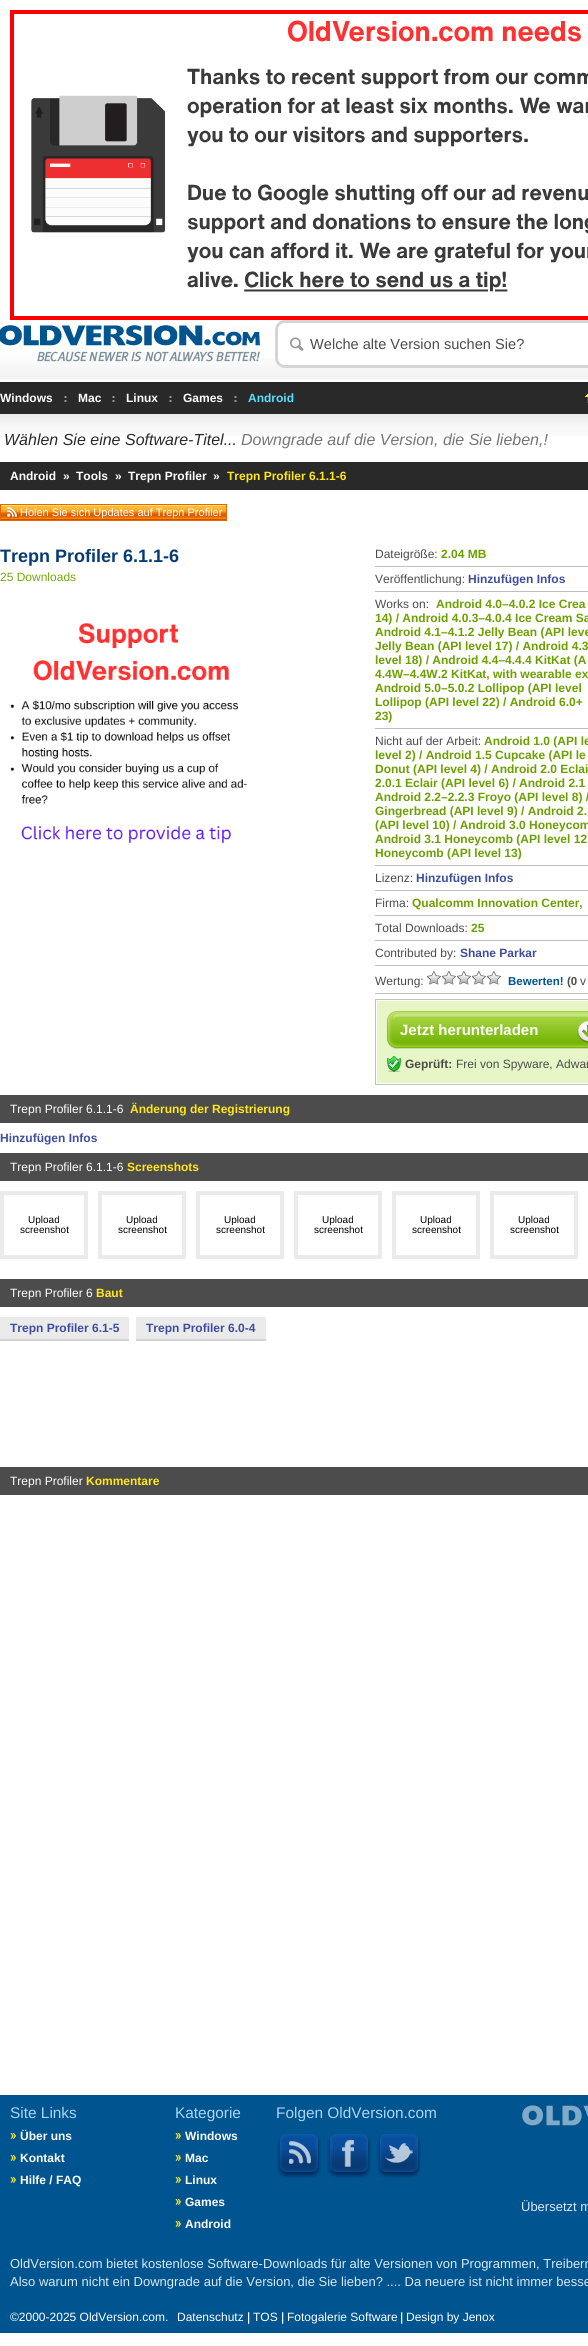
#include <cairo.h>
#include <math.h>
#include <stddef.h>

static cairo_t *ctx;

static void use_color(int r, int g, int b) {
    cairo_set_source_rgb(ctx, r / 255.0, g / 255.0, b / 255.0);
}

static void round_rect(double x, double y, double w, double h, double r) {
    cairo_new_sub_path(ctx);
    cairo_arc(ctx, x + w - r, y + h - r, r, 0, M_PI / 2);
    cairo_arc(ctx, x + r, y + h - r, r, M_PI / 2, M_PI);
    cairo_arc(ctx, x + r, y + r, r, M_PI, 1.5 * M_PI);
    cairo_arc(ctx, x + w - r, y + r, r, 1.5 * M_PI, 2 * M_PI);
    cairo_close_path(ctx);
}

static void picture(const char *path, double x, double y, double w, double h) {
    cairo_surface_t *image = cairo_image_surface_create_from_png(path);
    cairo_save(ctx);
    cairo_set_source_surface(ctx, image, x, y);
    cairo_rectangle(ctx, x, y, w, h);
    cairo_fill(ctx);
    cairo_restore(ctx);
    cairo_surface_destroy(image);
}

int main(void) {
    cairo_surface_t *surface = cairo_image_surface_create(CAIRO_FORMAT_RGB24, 588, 2346);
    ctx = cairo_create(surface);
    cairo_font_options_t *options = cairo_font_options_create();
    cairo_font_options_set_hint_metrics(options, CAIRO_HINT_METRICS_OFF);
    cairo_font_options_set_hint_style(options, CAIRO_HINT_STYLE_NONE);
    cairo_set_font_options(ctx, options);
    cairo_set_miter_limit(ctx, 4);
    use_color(255, 255, 255);
    cairo_paint(ctx);
    picture("img1.png", 0, 358, 588, 22);
    cairo_rectangle(ctx, 12, 12, 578, 306);
    use_color(255, 0, 0);
    cairo_set_line_width(ctx, 4);
    cairo_stroke(ctx);
    picture("img2.png", 31, 20, 557, 272);
    picture("img3.png", 0, 325, 260, 39);
    use_color(255, 255, 255);
    round_rect(276.5, 321.5, 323, 45, 8.5);
    cairo_fill_preserve(ctx);
    use_color(213, 213, 213);
    cairo_set_line_width(ctx, 3);
    cairo_stroke(ctx);
    picture("img4.png", 290, 337, 14, 14);
    cairo_select_font_face(ctx, "Liberation Sans", CAIRO_FONT_SLANT_NORMAL, CAIRO_FONT_WEIGHT_NORMAL);
    cairo_set_font_size(ctx, 14.6);
    use_color(76, 76, 76);
    cairo_move_to(ctx, 310, 349);
    cairo_show_text(ctx, "Welche alte Version suchen Sie?");
    use_color(41, 41, 41);
    cairo_rectangle(ctx, 0, 382, 588, 32);
    cairo_fill(ctx);
    picture("img5.png", 64, 396, 3, 6);
    cairo_select_font_face(ctx, "Liberation Sans", CAIRO_FONT_SLANT_NORMAL, CAIRO_FONT_WEIGHT_BOLD);
    cairo_set_font_size(ctx, 12);
    use_color(255, 255, 255);
    cairo_move_to(ctx, 0, 402);
    cairo_show_text(ctx, "Windows");
    picture("img5.png", 112, 396, 3, 6);
    cairo_move_to(ctx, 78, 402);
    cairo_show_text(ctx, "Mac");
    picture("img5.png", 169, 396, 3, 6);
    cairo_move_to(ctx, 126, 402);
    cairo_show_text(ctx, "Linux");
    picture("img5.png", 234, 396, 3, 6);
    cairo_move_to(ctx, 183, 402);
    cairo_show_text(ctx, "Games");
    use_color(91, 222, 255);
    cairo_move_to(ctx, 248, 402);
    cairo_show_text(ctx, "Android");
    picture("img6.png", 585, 394, 3, 9);
    picture("img7.png", 0, 414, 588, 22);
    cairo_select_font_face(ctx, "Liberation Sans", CAIRO_FONT_SLANT_ITALIC, CAIRO_FONT_WEIGHT_NORMAL);
    cairo_set_font_size(ctx, 16);
    use_color(42, 42, 42);
    cairo_move_to(ctx, 4, 445);
    cairo_show_text(ctx, "Wählen Sie eine Software-Titel...");
    use_color(118, 118, 118);
    cairo_move_to(ctx, 241, 445);
    cairo_show_text(ctx, "Downgrade auf die Version, die Sie lieben,!");
    use_color(41, 41, 41);
    cairo_rectangle(ctx, 0, 462, 588, 28);
    cairo_fill(ctx);
    cairo_select_font_face(ctx, "Liberation Sans", CAIRO_FONT_SLANT_NORMAL, CAIRO_FONT_WEIGHT_BOLD);
    cairo_set_font_size(ctx, 12);
    use_color(255, 255, 255);
    cairo_move_to(ctx, 10, 480);
    cairo_show_text(ctx, "Android");
    cairo_move_to(ctx, 63, 480);
    cairo_show_text(ctx, "»");
    cairo_move_to(ctx, 76, 480);
    cairo_show_text(ctx, "Tools");
    cairo_move_to(ctx, 115, 480);
    cairo_show_text(ctx, "»");
    cairo_move_to(ctx, 128, 480);
    cairo_show_text(ctx, "Trepn Profiler");
    cairo_move_to(ctx, 213, 480);
    cairo_show_text(ctx, "»");
    use_color(255, 231, 24);
    cairo_move_to(ctx, 227, 480);
    cairo_show_text(ctx, "Trepn Profiler 6.1.1-6");
    picture("img8.png", 0, 504, 227, 17);
    picture("img9.png", 0, 505, 19, 15);
    cairo_select_font_face(ctx, "Liberation Sans", CAIRO_FONT_SLANT_NORMAL, CAIRO_FONT_WEIGHT_NORMAL);
    cairo_set_font_size(ctx, 11);
    use_color(255, 255, 255);
    cairo_move_to(ctx, 20, 516);
    cairo_show_text(ctx, "Holen Sie sich Updates auf Trepn Profiler");
    cairo_select_font_face(ctx, "Liberation Sans", CAIRO_FONT_SLANT_NORMAL, CAIRO_FONT_WEIGHT_BOLD);
    cairo_set_font_size(ctx, 18);
    use_color(7, 59, 118);
    cairo_move_to(ctx, 0, 562);
    cairo_show_text(ctx, "Trepn Profiler 6.1.1-6");
    cairo_select_font_face(ctx, "Liberation Sans", CAIRO_FONT_SLANT_NORMAL, CAIRO_FONT_WEIGHT_NORMAL);
    cairo_set_font_size(ctx, 12);
    use_color(118, 166, 17);
    cairo_move_to(ctx, 0, 581);
    cairo_show_text(ctx, "25 Downloads");
    picture("img10.png", 10, 623, 238, 220);
    use_color(192, 192, 192);
    cairo_rectangle(ctx, 375, 566, 213, 1);
    cairo_fill(ctx);
    use_color(76, 76, 76);
    cairo_move_to(ctx, 375, 558);
    cairo_show_text(ctx, "Dateigröße:");
    cairo_select_font_face(ctx, "Liberation Sans", CAIRO_FONT_SLANT_NORMAL, CAIRO_FONT_WEIGHT_BOLD);
    use_color(108, 160, 0);
    cairo_move_to(ctx, 441, 558);
    cairo_show_text(ctx, "2.04 MB");
    use_color(192, 192, 192);
    cairo_rectangle(ctx, 375, 591, 213, 1);
    cairo_fill(ctx);
    cairo_select_font_face(ctx, "Liberation Sans", CAIRO_FONT_SLANT_NORMAL, CAIRO_FONT_WEIGHT_NORMAL);
    use_color(76, 76, 76);
    cairo_move_to(ctx, 375, 583);
    cairo_show_text(ctx, "Veröffentlichung:");
    cairo_select_font_face(ctx, "Liberation Sans", CAIRO_FONT_SLANT_NORMAL, CAIRO_FONT_WEIGHT_BOLD);
    use_color(62, 78, 156);
    cairo_move_to(ctx, 468, 583);
    cairo_show_text(ctx, "Hinzufügen Infos");
    use_color(192, 192, 192);
    cairo_rectangle(ctx, 375, 728, 213, 1);
    cairo_fill(ctx);
    cairo_select_font_face(ctx, "Liberation Sans", CAIRO_FONT_SLANT_NORMAL, CAIRO_FONT_WEIGHT_NORMAL);
    use_color(76, 76, 76);
    cairo_move_to(ctx, 375, 608);
    cairo_show_text(ctx, "Works on:");
    cairo_select_font_face(ctx, "Liberation Sans", CAIRO_FONT_SLANT_NORMAL, CAIRO_FONT_WEIGHT_BOLD);
    use_color(108, 160, 0);
    cairo_move_to(ctx, 436, 608);
    cairo_show_text(ctx, "Android 4.0–4.0.2 Ice Crea");
    cairo_move_to(ctx, 375, 622);
    cairo_show_text(ctx, "14) / Android 4.0.3–4.0.4 Ice Cream Sa");
    cairo_move_to(ctx, 375, 636);
    cairo_show_text(ctx, "Android 4.1–4.1.2 Jelly Bean (API leve");
    cairo_move_to(ctx, 375, 650);
    cairo_show_text(ctx, "Jelly Bean (API level 17) / Android 4.3");
    cairo_move_to(ctx, 375, 664);
    cairo_show_text(ctx, "level 18) / Android 4.4–4.4.4 KitKat (A");
    cairo_move_to(ctx, 375, 678);
    cairo_show_text(ctx, "4.4W–4.4W.2 KitKat, with wearable ex");
    cairo_move_to(ctx, 375, 692);
    cairo_show_text(ctx, "Android 5.0–5.0.2 Lollipop (API level");
    cairo_move_to(ctx, 375, 706);
    cairo_show_text(ctx, "Lollipop (API level 22) / Android 6.0+");
    cairo_move_to(ctx, 375, 720);
    cairo_show_text(ctx, "23)");
    use_color(192, 192, 192);
    cairo_rectangle(ctx, 375, 865, 213, 1);
    cairo_fill(ctx);
    cairo_select_font_face(ctx, "Liberation Sans", CAIRO_FONT_SLANT_NORMAL, CAIRO_FONT_WEIGHT_NORMAL);
    use_color(76, 76, 76);
    cairo_move_to(ctx, 375, 745);
    cairo_show_text(ctx, "Nicht auf der Arbeit:");
    cairo_select_font_face(ctx, "Liberation Sans", CAIRO_FONT_SLANT_NORMAL, CAIRO_FONT_WEIGHT_BOLD);
    use_color(108, 160, 0);
    cairo_move_to(ctx, 484, 745);
    cairo_show_text(ctx, "Android 1.0 (API le");
    cairo_move_to(ctx, 375, 759);
    cairo_show_text(ctx, "level 2) / Android 1.5 Cupcake (API le");
    cairo_move_to(ctx, 375, 773);
    cairo_show_text(ctx, "Donut (API level 4) / Android 2.0 Eclai");
    cairo_move_to(ctx, 375, 787);
    cairo_show_text(ctx, "2.0.1 Eclair (API level 6) / Android 2.1");
    cairo_move_to(ctx, 375, 801);
    cairo_show_text(ctx, "Android 2.2–2.2.3 Froyo (API level 8) /");
    cairo_move_to(ctx, 375, 815);
    cairo_show_text(ctx, "Gingerbread (API level 9) / Android 2.");
    cairo_move_to(ctx, 375, 829);
    cairo_show_text(ctx, "(API level 10) / Android 3.0 Honeycom");
    cairo_move_to(ctx, 375, 843);
    cairo_show_text(ctx, "Android 3.1 Honeycomb (API level 12");
    cairo_move_to(ctx, 375, 857);
    cairo_show_text(ctx, "Honeycomb (API level 13)");
    use_color(192, 192, 192);
    cairo_rectangle(ctx, 375, 890, 213, 1);
    cairo_fill(ctx);
    cairo_select_font_face(ctx, "Liberation Sans", CAIRO_FONT_SLANT_NORMAL, CAIRO_FONT_WEIGHT_NORMAL);
    use_color(76, 76, 76);
    cairo_move_to(ctx, 375, 882);
    cairo_show_text(ctx, "Lizenz:");
    cairo_select_font_face(ctx, "Liberation Sans", CAIRO_FONT_SLANT_NORMAL, CAIRO_FONT_WEIGHT_BOLD);
    use_color(62, 78, 156);
    cairo_move_to(ctx, 416, 882);
    cairo_show_text(ctx, "Hinzufügen Infos");
    use_color(192, 192, 192);
    cairo_rectangle(ctx, 375, 915, 213, 1);
    cairo_fill(ctx);
    cairo_select_font_face(ctx, "Liberation Sans", CAIRO_FONT_SLANT_NORMAL, CAIRO_FONT_WEIGHT_NORMAL);
    use_color(76, 76, 76);
    cairo_move_to(ctx, 375, 907);
    cairo_show_text(ctx, "Firma:");
    cairo_select_font_face(ctx, "Liberation Sans", CAIRO_FONT_SLANT_NORMAL, CAIRO_FONT_WEIGHT_BOLD);
    use_color(108, 160, 0);
    cairo_move_to(ctx, 412, 907);
    cairo_show_text(ctx, "Qualcomm Innovation Center,");
    use_color(192, 192, 192);
    cairo_rectangle(ctx, 375, 940, 213, 1);
    cairo_fill(ctx);
    cairo_select_font_face(ctx, "Liberation Sans", CAIRO_FONT_SLANT_NORMAL, CAIRO_FONT_WEIGHT_NORMAL);
    use_color(76, 76, 76);
    cairo_move_to(ctx, 375, 932);
    cairo_show_text(ctx, "Total Downloads:");
    cairo_select_font_face(ctx, "Liberation Sans", CAIRO_FONT_SLANT_NORMAL, CAIRO_FONT_WEIGHT_BOLD);
    use_color(108, 160, 0);
    cairo_move_to(ctx, 471, 932);
    cairo_show_text(ctx, "25");
    use_color(192, 192, 192);
    cairo_rectangle(ctx, 375, 965, 213, 1);
    cairo_fill(ctx);
    cairo_select_font_face(ctx, "Liberation Sans", CAIRO_FONT_SLANT_NORMAL, CAIRO_FONT_WEIGHT_NORMAL);
    use_color(76, 76, 76);
    cairo_move_to(ctx, 375, 957);
    cairo_show_text(ctx, "Contributed by:");
    cairo_select_font_face(ctx, "Liberation Sans", CAIRO_FONT_SLANT_NORMAL, CAIRO_FONT_WEIGHT_BOLD);
    use_color(62, 78, 156);
    cairo_move_to(ctx, 460, 957);
    cairo_show_text(ctx, "Shane Parkar");
    use_color(192, 192, 192);
    cairo_rectangle(ctx, 375, 993, 213, 1);
    cairo_fill(ctx);
    cairo_select_font_face(ctx, "Liberation Sans", CAIRO_FONT_SLANT_NORMAL, CAIRO_FONT_WEIGHT_NORMAL);
    use_color(76, 76, 76);
    cairo_move_to(ctx, 375, 985);
    cairo_show_text(ctx, "Wertung:");
    picture("img11.png", 427, 971, 74, 14);
    cairo_select_font_face(ctx, "Liberation Sans", CAIRO_FONT_SLANT_NORMAL, CAIRO_FONT_WEIGHT_BOLD);
    cairo_set_font_size(ctx, 11.5);
    use_color(0, 84, 143);
    cairo_move_to(ctx, 508, 985);
    cairo_show_text(ctx, "Bewerten!");
    use_color(76, 76, 76);
    cairo_move_to(ctx, 567, 985);
    cairo_show_text(ctx, "(0");
    cairo_select_font_face(ctx, "Liberation Sans", CAIRO_FONT_SLANT_NORMAL, CAIRO_FONT_WEIGHT_NORMAL);
    cairo_set_font_size(ctx, 12);
    cairo_move_to(ctx, 580, 985);
    cairo_show_text(ctx, "v");
    cairo_rectangle(ctx, 375.5, 999.5, 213, 85);
    use_color(192, 192, 192);
    cairo_set_line_width(ctx, 1);
    cairo_stroke(ctx);
    use_color(231, 246, 199);
    cairo_rectangle(ctx, 377, 1001, 211, 82);
    cairo_fill(ctx);
    picture("img12.png", 387, 1011, 201, 38);
    cairo_select_font_face(ctx, "Liberation Sans", CAIRO_FONT_SLANT_NORMAL, CAIRO_FONT_WEIGHT_BOLD);
    cairo_set_font_size(ctx, 15);
    use_color(255, 255, 255);
    cairo_move_to(ctx, 400, 1035);
    cairo_show_text(ctx, "Jetzt herunterladen");
    picture("img13.png", 387, 1056, 14, 16);
    cairo_set_font_size(ctx, 12);
    use_color(76, 76, 76);
    cairo_move_to(ctx, 405, 1068);
    cairo_show_text(ctx, "Geprüft:");
    cairo_select_font_face(ctx, "Liberation Sans", CAIRO_FONT_SLANT_NORMAL, CAIRO_FONT_WEIGHT_NORMAL);
    cairo_move_to(ctx, 456, 1068);
    cairo_show_text(ctx, "Frei von Spyware, Adwar");
    cairo_rectangle(ctx, 0, 1095, 588, 28);
    cairo_fill(ctx);
    use_color(255, 255, 255);
    cairo_move_to(ctx, 10, 1113);
    cairo_show_text(ctx, "Trepn Profiler 6.1.1-6");
    cairo_select_font_face(ctx, "Liberation Sans", CAIRO_FONT_SLANT_NORMAL, CAIRO_FONT_WEIGHT_BOLD);
    use_color(255, 231, 24);
    cairo_move_to(ctx, 130, 1113);
    cairo_show_text(ctx, "Änderung der Registrierung");
    use_color(62, 78, 156);
    cairo_move_to(ctx, 0, 1142);
    cairo_show_text(ctx, "Hinzufügen Infos");
    use_color(76, 76, 76);
    cairo_rectangle(ctx, 0, 1153, 588, 28);
    cairo_fill(ctx);
    cairo_select_font_face(ctx, "Liberation Sans", CAIRO_FONT_SLANT_NORMAL, CAIRO_FONT_WEIGHT_NORMAL);
    use_color(255, 255, 255);
    cairo_move_to(ctx, 10, 1171);
    cairo_show_text(ctx, "Trepn Profiler 6.1.1-6");
    cairo_select_font_face(ctx, "Liberation Sans", CAIRO_FONT_SLANT_NORMAL, CAIRO_FONT_WEIGHT_BOLD);
    use_color(255, 231, 24);
    cairo_move_to(ctx, 127, 1171);
    cairo_show_text(ctx, "Screenshots");
    cairo_rectangle(ctx, 2, 1193, 84, 64);
    use_color(235, 235, 235);
    cairo_set_line_width(ctx, 4);
    cairo_stroke(ctx);
    cairo_select_font_face(ctx, "Liberation Sans", CAIRO_FONT_SLANT_NORMAL, CAIRO_FONT_WEIGHT_NORMAL);
    cairo_set_font_size(ctx, 10);
    use_color(0, 0, 0);
    cairo_move_to(ctx, 28, 1223);
    cairo_show_text(ctx, "Upload");
    cairo_move_to(ctx, 20, 1233);
    cairo_show_text(ctx, "screenshot");
    cairo_rectangle(ctx, 100, 1193, 84, 64);
    use_color(235, 235, 235);
    cairo_stroke(ctx);
    use_color(0, 0, 0);
    cairo_move_to(ctx, 126, 1223);
    cairo_show_text(ctx, "Upload");
    cairo_move_to(ctx, 118, 1233);
    cairo_show_text(ctx, "screenshot");
    cairo_rectangle(ctx, 198, 1193, 84, 64);
    use_color(235, 235, 235);
    cairo_stroke(ctx);
    use_color(0, 0, 0);
    cairo_move_to(ctx, 224, 1223);
    cairo_show_text(ctx, "Upload");
    cairo_move_to(ctx, 216, 1233);
    cairo_show_text(ctx, "screenshot");
    cairo_rectangle(ctx, 296, 1193, 84, 64);
    use_color(235, 235, 235);
    cairo_stroke(ctx);
    use_color(0, 0, 0);
    cairo_move_to(ctx, 322, 1223);
    cairo_show_text(ctx, "Upload");
    cairo_move_to(ctx, 314, 1233);
    cairo_show_text(ctx, "screenshot");
    cairo_rectangle(ctx, 394, 1193, 84, 64);
    use_color(235, 235, 235);
    cairo_stroke(ctx);
    use_color(0, 0, 0);
    cairo_move_to(ctx, 420, 1223);
    cairo_show_text(ctx, "Upload");
    cairo_move_to(ctx, 412, 1233);
    cairo_show_text(ctx, "screenshot");
    cairo_rectangle(ctx, 492, 1193, 84, 64);
    use_color(235, 235, 235);
    cairo_stroke(ctx);
    use_color(0, 0, 0);
    cairo_move_to(ctx, 518, 1223);
    cairo_show_text(ctx, "Upload");
    cairo_move_to(ctx, 510, 1233);
    cairo_show_text(ctx, "screenshot");
    use_color(76, 76, 76);
    cairo_rectangle(ctx, 0, 1279, 588, 28);
    cairo_fill(ctx);
    cairo_set_font_size(ctx, 12);
    use_color(255, 255, 255);
    cairo_move_to(ctx, 10, 1297);
    cairo_show_text(ctx, "Trepn Profiler 6");
    cairo_select_font_face(ctx, "Liberation Sans", CAIRO_FONT_SLANT_NORMAL, CAIRO_FONT_WEIGHT_BOLD);
    use_color(255, 231, 24);
    cairo_move_to(ctx, 96, 1297);
    cairo_show_text(ctx, "Baut");
    use_color(235, 235, 235);
    cairo_rectangle(ctx, 0, 1317, 129, 22);
    cairo_fill(ctx);
    use_color(213, 212, 212);
    cairo_rectangle(ctx, 0, 1339, 129, 2);
    cairo_fill(ctx);
    use_color(62, 78, 156);
    cairo_move_to(ctx, 10, 1332);
    cairo_show_text(ctx, "Trepn Profiler 6.1-5");
    use_color(235, 235, 235);
    cairo_rectangle(ctx, 136, 1317, 130, 22);
    cairo_fill(ctx);
    use_color(213, 212, 212);
    cairo_rectangle(ctx, 136, 1339, 130, 2);
    cairo_fill(ctx);
    use_color(62, 78, 156);
    cairo_move_to(ctx, 146, 1332);
    cairo_show_text(ctx, "Trepn Profiler 6.0-4");
    use_color(76, 76, 76);
    cairo_rectangle(ctx, 0, 1467, 588, 28);
    cairo_fill(ctx);
    cairo_select_font_face(ctx, "Liberation Sans", CAIRO_FONT_SLANT_NORMAL, CAIRO_FONT_WEIGHT_NORMAL);
    use_color(255, 255, 255);
    cairo_move_to(ctx, 10, 1485);
    cairo_show_text(ctx, "Trepn Profiler");
    cairo_select_font_face(ctx, "Liberation Sans", CAIRO_FONT_SLANT_NORMAL, CAIRO_FONT_WEIGHT_BOLD);
    use_color(255, 231, 24);
    cairo_move_to(ctx, 86, 1485);
    cairo_show_text(ctx, "Kommentare");
    use_color(0, 84, 143);
    cairo_rectangle(ctx, 0, 2095, 588, 238);
    cairo_fill(ctx);
    cairo_select_font_face(ctx, "Liberation Sans", CAIRO_FONT_SLANT_NORMAL, CAIRO_FONT_WEIGHT_NORMAL);
    cairo_set_font_size(ctx, 15.4);
    use_color(171, 212, 240);
    cairo_move_to(ctx, 10, 2118);
    cairo_show_text(ctx, "Site Links");
    picture("img14.png", 10, 2133, 6, 6);
    cairo_select_font_face(ctx, "Liberation Sans", CAIRO_FONT_SLANT_NORMAL, CAIRO_FONT_WEIGHT_BOLD);
    cairo_set_font_size(ctx, 12);
    use_color(255, 255, 255);
    cairo_move_to(ctx, 20, 2140);
    cairo_show_text(ctx, "Über uns");
    picture("img14.png", 10, 2155, 6, 6);
    cairo_move_to(ctx, 20, 2162);
    cairo_show_text(ctx, "Kontakt");
    picture("img14.png", 10, 2177, 6, 6);
    cairo_move_to(ctx, 20, 2184);
    cairo_show_text(ctx, "Hilfe / FAQ");
    cairo_select_font_face(ctx, "Liberation Sans", CAIRO_FONT_SLANT_NORMAL, CAIRO_FONT_WEIGHT_NORMAL);
    cairo_set_font_size(ctx, 15.4);
    use_color(171, 212, 240);
    cairo_move_to(ctx, 175, 2118);
    cairo_show_text(ctx, "Kategorie");
    picture("img14.png", 175, 2133, 6, 6);
    cairo_select_font_face(ctx, "Liberation Sans", CAIRO_FONT_SLANT_NORMAL, CAIRO_FONT_WEIGHT_BOLD);
    cairo_set_font_size(ctx, 12);
    use_color(255, 255, 255);
    cairo_move_to(ctx, 185, 2140);
    cairo_show_text(ctx, "Windows");
    picture("img14.png", 175, 2155, 6, 6);
    cairo_move_to(ctx, 185, 2162);
    cairo_show_text(ctx, "Mac");
    picture("img14.png", 175, 2177, 6, 6);
    cairo_move_to(ctx, 185, 2184);
    cairo_show_text(ctx, "Linux");
    picture("img14.png", 175, 2199, 6, 6);
    cairo_move_to(ctx, 185, 2206);
    cairo_show_text(ctx, "Games");
    picture("img14.png", 175, 2221, 6, 6);
    cairo_move_to(ctx, 185, 2228);
    cairo_show_text(ctx, "Android");
    cairo_select_font_face(ctx, "Liberation Sans", CAIRO_FONT_SLANT_NORMAL, CAIRO_FONT_WEIGHT_NORMAL);
    cairo_set_font_size(ctx, 15.4);
    use_color(171, 212, 240);
    cairo_move_to(ctx, 276, 2118);
    cairo_show_text(ctx, "Folgen OldVersion.com");
    picture("img15.png", 277, 2134, 44, 44);
    picture("img16.png", 327, 2134, 44, 44);
    picture("img17.png", 377, 2134, 44, 44);
    picture("img18.png", 522, 2105, 66, 24);
    cairo_set_font_size(ctx, 13);
    use_color(217, 233, 244);
    cairo_move_to(ctx, 521, 2211);
    cairo_show_text(ctx, "Übersetzt m");
    cairo_move_to(ctx, 10, 2268);
    cairo_show_text(ctx, "OldVersion.com bietet kostenlose Software-Downloads für alte Versionen von Programmen, Treibern");
    cairo_move_to(ctx, 10, 2286);
    cairo_show_text(ctx, "Also warum nicht ein Downgrade auf die Version, die Sie lieben? .... Da neuere ist nicht immer besse");
    cairo_set_font_size(ctx, 12);
    use_color(255, 255, 255);
    cairo_move_to(ctx, 10, 2321);
    cairo_show_text(ctx, "©2000-2025 OldVersion.com.");
    cairo_move_to(ctx, 177, 2321);
    cairo_show_text(ctx, "Datenschutz");
    picture("img19.png", 248, 2312, 2, 12);
    cairo_move_to(ctx, 253, 2321);
    cairo_show_text(ctx, "TOS");
    picture("img19.png", 282, 2312, 2, 12);
    cairo_move_to(ctx, 287, 2321);
    cairo_show_text(ctx, "Fotogalerie Software");
    picture("img19.png", 401, 2312, 2, 12);
    cairo_move_to(ctx, 406, 2321);
    cairo_show_text(ctx, "Design by Jenox");
    cairo_surface_write_to_png(surface, "result.png");
    cairo_font_options_destroy(options);
    cairo_destroy(ctx);
    cairo_surface_destroy(surface);
    return 0;
}
